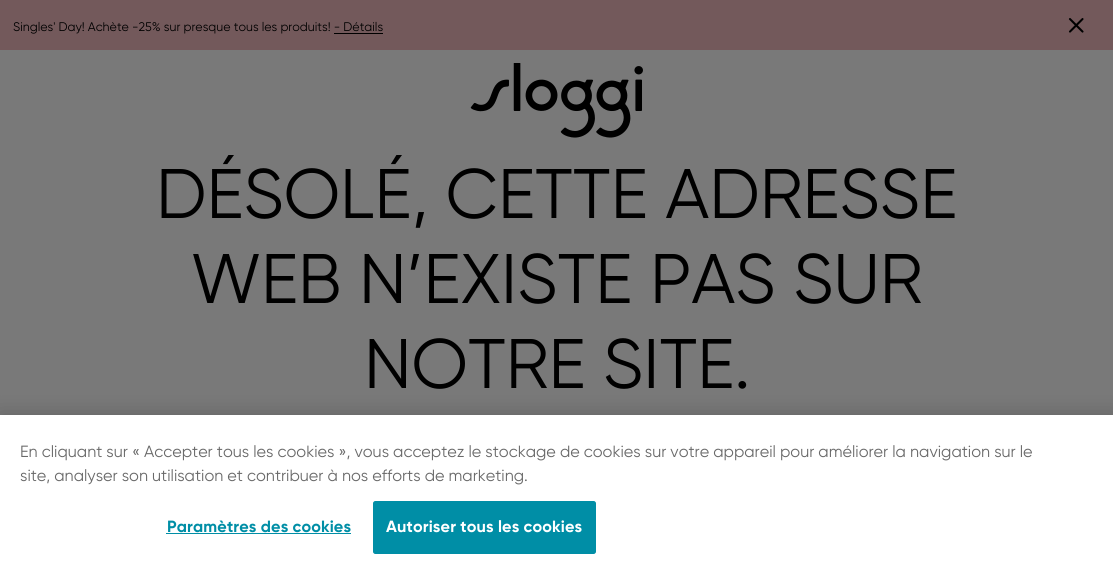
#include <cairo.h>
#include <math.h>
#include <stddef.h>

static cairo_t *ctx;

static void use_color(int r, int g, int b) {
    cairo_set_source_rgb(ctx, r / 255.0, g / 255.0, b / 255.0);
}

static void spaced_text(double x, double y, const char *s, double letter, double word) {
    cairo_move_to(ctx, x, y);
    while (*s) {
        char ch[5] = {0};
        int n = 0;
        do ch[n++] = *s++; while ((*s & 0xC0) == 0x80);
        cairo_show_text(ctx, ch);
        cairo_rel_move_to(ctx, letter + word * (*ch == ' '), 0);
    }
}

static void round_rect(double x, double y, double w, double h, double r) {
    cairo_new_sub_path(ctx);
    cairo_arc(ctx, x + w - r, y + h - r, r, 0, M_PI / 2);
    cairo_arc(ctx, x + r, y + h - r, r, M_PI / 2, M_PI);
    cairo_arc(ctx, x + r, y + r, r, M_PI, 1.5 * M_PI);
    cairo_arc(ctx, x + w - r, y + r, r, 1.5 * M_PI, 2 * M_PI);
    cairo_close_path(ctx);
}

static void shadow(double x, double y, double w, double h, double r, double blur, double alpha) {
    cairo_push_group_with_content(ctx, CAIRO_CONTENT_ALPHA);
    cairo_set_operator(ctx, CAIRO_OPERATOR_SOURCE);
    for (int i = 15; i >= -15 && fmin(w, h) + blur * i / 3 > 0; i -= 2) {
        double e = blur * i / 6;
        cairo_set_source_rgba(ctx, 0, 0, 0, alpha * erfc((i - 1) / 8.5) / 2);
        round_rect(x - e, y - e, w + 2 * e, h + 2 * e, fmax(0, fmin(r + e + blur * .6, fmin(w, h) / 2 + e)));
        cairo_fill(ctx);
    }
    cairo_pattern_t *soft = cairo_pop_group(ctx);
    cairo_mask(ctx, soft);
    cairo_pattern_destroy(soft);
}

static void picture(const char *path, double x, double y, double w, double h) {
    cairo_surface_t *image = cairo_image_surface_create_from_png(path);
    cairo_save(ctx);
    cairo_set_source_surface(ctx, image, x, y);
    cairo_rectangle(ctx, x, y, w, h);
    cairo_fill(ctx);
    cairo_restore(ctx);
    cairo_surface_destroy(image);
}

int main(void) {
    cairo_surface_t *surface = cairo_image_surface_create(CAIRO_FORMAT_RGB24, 1113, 573);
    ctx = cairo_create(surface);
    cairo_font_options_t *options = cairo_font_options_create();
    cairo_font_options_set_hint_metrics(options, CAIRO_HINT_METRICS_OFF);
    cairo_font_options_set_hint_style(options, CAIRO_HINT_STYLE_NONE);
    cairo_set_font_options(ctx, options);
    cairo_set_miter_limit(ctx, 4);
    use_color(121, 121, 121);
    cairo_paint(ctx);
    use_color(115, 89, 91);
    cairo_rectangle(ctx, 0, 0, 1113, 50);
    cairo_fill(ctx);
    cairo_select_font_face(ctx, "gilroy", CAIRO_FONT_SLANT_NORMAL, CAIRO_FONT_WEIGHT_NORMAL);
    cairo_set_font_size(ctx, 12.5);
    use_color(0, 0, 0);
    cairo_move_to(ctx, 13, 31);
    cairo_show_text(ctx, "Singles' Day! Achète -25% sur presque tous les produits! - Détails");
    cairo_rectangle(ctx, 334, 33, 49, 1);
    cairo_fill(ctx);
    picture("img1.png", 1068, 18, 16, 15);
    picture("img2.png", 470, 63, 173, 75);
    cairo_set_font_size(ctx, 70);
    cairo_move_to(ctx, 156, 218);
    cairo_show_text(ctx, "DÉSOLÉ, CETTE ADRESSE");
    cairo_move_to(ctx, 191, 303);
    cairo_show_text(ctx, "WEB N’EXISTE PAS SUR");
    cairo_move_to(ctx, 364, 388);
    cairo_show_text(ctx, "NOTRE SITE.");
    use_color(0, 0, 0);
    shadow(0, 415, 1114, 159, 0, 11, 0.2);
    use_color(255, 255, 255);
    cairo_rectangle(ctx, 0, 415, 1113, 158);
    cairo_fill(ctx);
    cairo_set_font_size(ctx, 16.25);
    use_color(105, 105, 105);
    cairo_move_to(ctx, 20, 457);
    cairo_show_text(ctx, "En cliquant sur « Accepter tous les cookies », vous acceptez le stockage de cookies sur votre appareil pour améliorer la navigation sur le");
    cairo_move_to(ctx, 20, 481);
    cairo_show_text(ctx, "site, analyser son utilisation et contribuer à nos efforts de marketing.");
    cairo_select_font_face(ctx, "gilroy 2", CAIRO_FONT_SLANT_NORMAL, CAIRO_FONT_WEIGHT_NORMAL);
    use_color(0, 142, 166);
    spaced_text(167, 532, "Paramètres des cookies", 0.15, 0);
    cairo_rectangle(ctx, 166, 533, 185, 1);
    cairo_fill(ctx);
    round_rect(373.5, 501.5, 222, 52, 2);
    cairo_fill_preserve(ctx);
    cairo_set_line_width(ctx, 1);
    cairo_stroke(ctx);
    use_color(255, 255, 255);
    spaced_text(386, 532, "Autoriser tous les cookies", 0.15, 0);
    cairo_surface_write_to_png(surface, "result.png");
    cairo_font_options_destroy(options);
    cairo_destroy(ctx);
    cairo_surface_destroy(surface);
    return 0;
}
